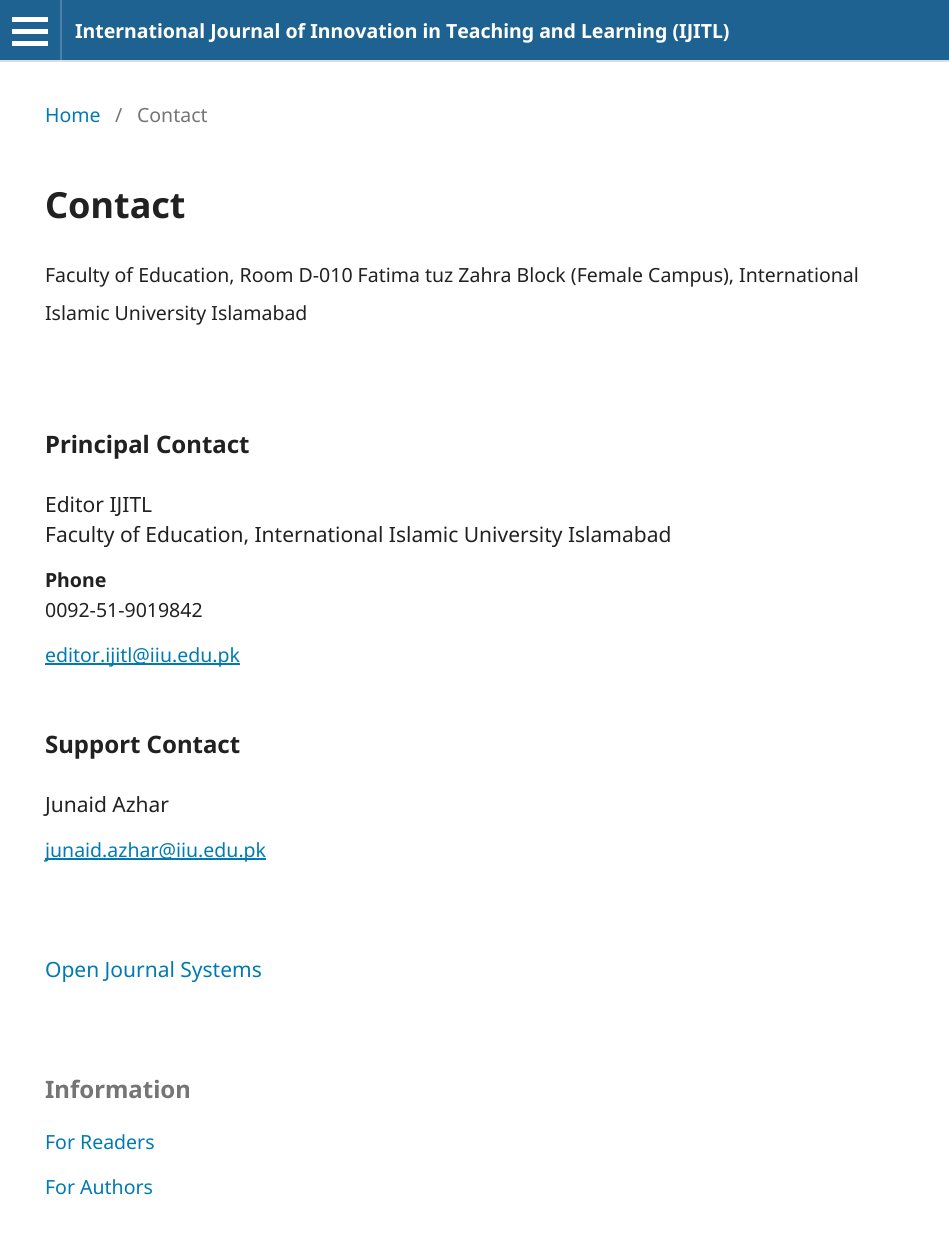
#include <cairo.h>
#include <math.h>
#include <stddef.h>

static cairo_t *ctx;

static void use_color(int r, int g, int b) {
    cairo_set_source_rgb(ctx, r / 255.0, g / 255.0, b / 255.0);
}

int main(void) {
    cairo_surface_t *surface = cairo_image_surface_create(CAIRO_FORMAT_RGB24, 949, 1233);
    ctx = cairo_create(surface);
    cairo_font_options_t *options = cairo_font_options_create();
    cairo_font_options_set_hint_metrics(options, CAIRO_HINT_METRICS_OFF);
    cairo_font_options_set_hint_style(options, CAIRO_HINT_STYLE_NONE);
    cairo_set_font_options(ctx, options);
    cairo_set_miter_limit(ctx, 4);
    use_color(255, 255, 255);
    cairo_paint(ctx);
    use_color(30, 98, 146);
    cairo_rectangle(ctx, 0, 0, 949, 60);
    cairo_fill(ctx);
    use_color(221, 221, 221);
    cairo_rectangle(ctx, 0, 60, 949, 2);
    cairo_fill(ctx);
    use_color(75, 129, 168);
    cairo_rectangle(ctx, 60, 0, 2, 60);
    cairo_fill(ctx);
    use_color(255, 255, 255);
    cairo_rectangle(ctx, 12, 41, 36, 5);
    cairo_fill(ctx);
    cairo_rectangle(ctx, 12, 17, 36, 5);
    cairo_fill(ctx);
    cairo_rectangle(ctx, 12, 29, 36, 5);
    cairo_fill(ctx);
    cairo_select_font_face(ctx, "Noto Sans", CAIRO_FONT_SLANT_NORMAL, CAIRO_FONT_WEIGHT_BOLD);
    cairo_set_font_size(ctx, 19.5);
    cairo_move_to(ctx, 75, 38);
    cairo_show_text(ctx, "International Journal of Innovation in Teaching and Learning (IJITL)");
    cairo_select_font_face(ctx, "Noto Sans", CAIRO_FONT_SLANT_NORMAL, CAIRO_FONT_WEIGHT_NORMAL);
    use_color(0, 122, 178);
    cairo_move_to(ctx, 45, 122);
    cairo_show_text(ctx, "Home");
    use_color(117, 117, 117);
    cairo_move_to(ctx, 115, 122);
    cairo_show_text(ctx, "/");
    cairo_move_to(ctx, 137, 122);
    cairo_show_text(ctx, "Contact");
    cairo_select_font_face(ctx, "Noto Sans", CAIRO_FONT_SLANT_NORMAL, CAIRO_FONT_WEIGHT_BOLD);
    cairo_set_font_size(ctx, 36);
    use_color(33, 33, 33);
    cairo_move_to(ctx, 45, 218);
    cairo_show_text(ctx, "Contact");
    cairo_select_font_face(ctx, "Noto Sans", CAIRO_FONT_SLANT_NORMAL, CAIRO_FONT_WEIGHT_NORMAL);
    cairo_set_font_size(ctx, 19.5);
    cairo_move_to(ctx, 45, 282);
    cairo_show_text(ctx, "Faculty of Education, Room D-010 Fatima tuz Zahra Block (Female Campus), International");
    cairo_move_to(ctx, 45, 320);
    cairo_show_text(ctx, "Islamic University Islamabad");
    cairo_select_font_face(ctx, "Noto Sans", CAIRO_FONT_SLANT_NORMAL, CAIRO_FONT_WEIGHT_BOLD);
    cairo_set_font_size(ctx, 24);
    cairo_move_to(ctx, 45, 453);
    cairo_show_text(ctx, "Principal Contact");
    cairo_select_font_face(ctx, "Noto Sans", CAIRO_FONT_SLANT_NORMAL, CAIRO_FONT_WEIGHT_NORMAL);
    cairo_set_font_size(ctx, 21);
    cairo_move_to(ctx, 45, 512);
    cairo_show_text(ctx, "Editor IJITL");
    cairo_move_to(ctx, 45, 542);
    cairo_show_text(ctx, "Faculty of Education, International Islamic University Islamabad");
    cairo_select_font_face(ctx, "Noto Sans", CAIRO_FONT_SLANT_NORMAL, CAIRO_FONT_WEIGHT_BOLD);
    cairo_set_font_size(ctx, 19.5);
    cairo_move_to(ctx, 45, 587);
    cairo_show_text(ctx, "Phone");
    cairo_select_font_face(ctx, "Noto Sans", CAIRO_FONT_SLANT_NORMAL, CAIRO_FONT_WEIGHT_NORMAL);
    cairo_move_to(ctx, 45, 617);
    cairo_show_text(ctx, "0092-51-9019842");
    use_color(0, 122, 178);
    cairo_rectangle(ctx, 45, 663, 195, 2);
    cairo_fill(ctx);
    cairo_move_to(ctx, 45, 662);
    cairo_show_text(ctx, "editor.ijitl@iiu.edu.pk");
    cairo_select_font_face(ctx, "Noto Sans", CAIRO_FONT_SLANT_NORMAL, CAIRO_FONT_WEIGHT_BOLD);
    cairo_set_font_size(ctx, 24);
    use_color(33, 33, 33);
    cairo_move_to(ctx, 45, 753);
    cairo_show_text(ctx, "Support Contact");
    cairo_select_font_face(ctx, "Noto Sans", CAIRO_FONT_SLANT_NORMAL, CAIRO_FONT_WEIGHT_NORMAL);
    cairo_set_font_size(ctx, 21);
    cairo_move_to(ctx, 45, 812);
    cairo_show_text(ctx, "Junaid Azhar");
    use_color(0, 122, 178);
    cairo_rectangle(ctx, 45, 858, 221, 2);
    cairo_fill(ctx);
    cairo_set_font_size(ctx, 19.5);
    cairo_move_to(ctx, 45, 857);
    cairo_show_text(ctx, "junaid.azhar@iiu.edu.pk");
    cairo_set_font_size(ctx, 21);
    cairo_move_to(ctx, 45, 977);
    cairo_show_text(ctx, "Open Journal Systems");
    cairo_select_font_face(ctx, "Noto Sans", CAIRO_FONT_SLANT_NORMAL, CAIRO_FONT_WEIGHT_BOLD);
    cairo_set_font_size(ctx, 24);
    use_color(117, 117, 117);
    cairo_move_to(ctx, 45, 1098);
    cairo_show_text(ctx, "Information");
    cairo_select_font_face(ctx, "Noto Sans", CAIRO_FONT_SLANT_NORMAL, CAIRO_FONT_WEIGHT_NORMAL);
    cairo_set_font_size(ctx, 19.5);
    use_color(0, 122, 178);
    cairo_move_to(ctx, 45, 1149);
    cairo_show_text(ctx, "For Readers");
    cairo_move_to(ctx, 45, 1194);
    cairo_show_text(ctx, "For Authors");
    cairo_surface_write_to_png(surface, "result.png");
    cairo_font_options_destroy(options);
    cairo_destroy(ctx);
    cairo_surface_destroy(surface);
    return 0;
}
